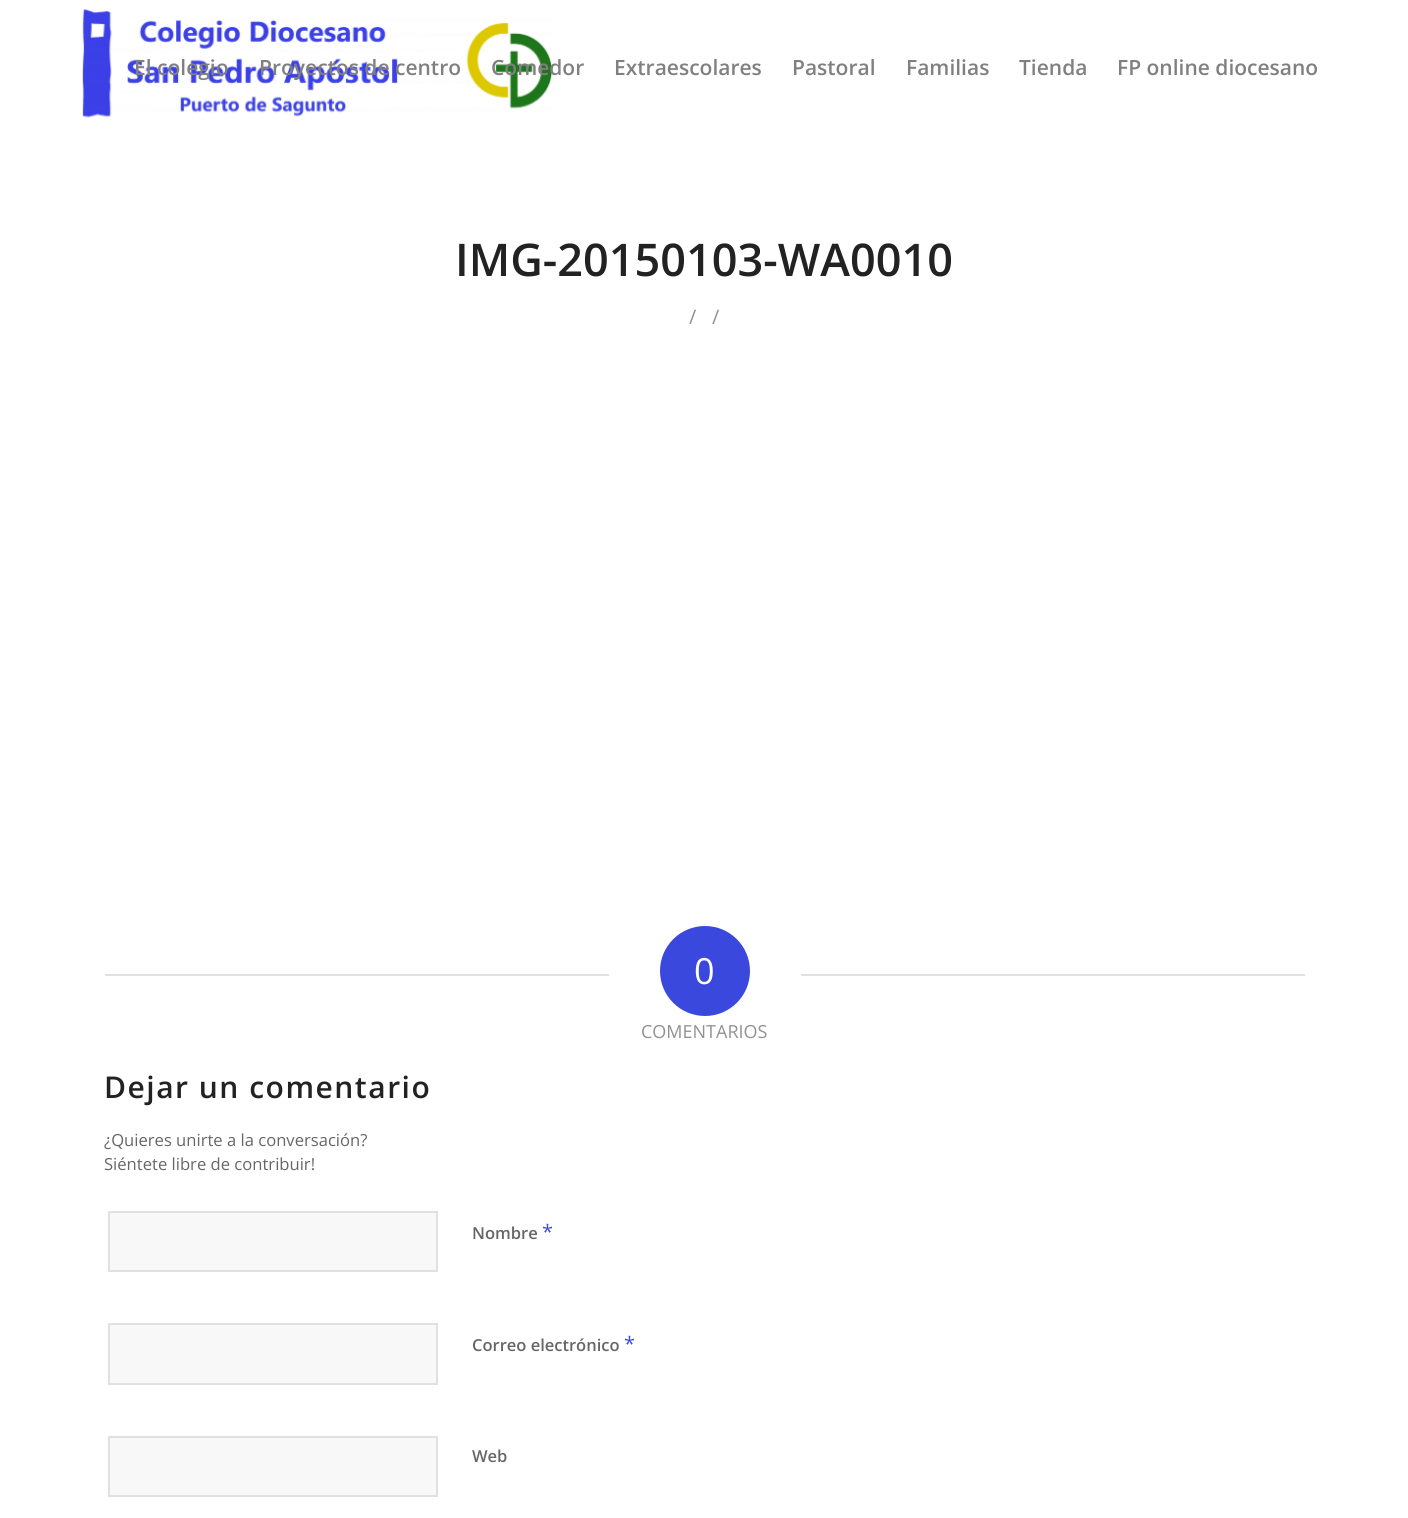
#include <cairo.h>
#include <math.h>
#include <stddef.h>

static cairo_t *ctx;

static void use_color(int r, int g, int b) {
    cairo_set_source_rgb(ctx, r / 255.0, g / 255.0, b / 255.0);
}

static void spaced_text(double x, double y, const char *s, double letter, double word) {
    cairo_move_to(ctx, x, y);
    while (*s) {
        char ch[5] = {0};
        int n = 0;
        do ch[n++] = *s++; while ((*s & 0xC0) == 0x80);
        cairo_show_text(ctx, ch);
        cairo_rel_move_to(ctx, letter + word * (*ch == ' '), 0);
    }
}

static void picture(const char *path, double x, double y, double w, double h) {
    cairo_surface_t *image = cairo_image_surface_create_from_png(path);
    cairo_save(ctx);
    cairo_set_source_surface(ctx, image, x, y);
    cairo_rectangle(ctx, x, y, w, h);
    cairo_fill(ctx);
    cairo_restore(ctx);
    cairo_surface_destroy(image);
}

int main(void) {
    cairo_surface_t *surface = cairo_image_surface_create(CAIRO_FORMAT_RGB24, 1408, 1518);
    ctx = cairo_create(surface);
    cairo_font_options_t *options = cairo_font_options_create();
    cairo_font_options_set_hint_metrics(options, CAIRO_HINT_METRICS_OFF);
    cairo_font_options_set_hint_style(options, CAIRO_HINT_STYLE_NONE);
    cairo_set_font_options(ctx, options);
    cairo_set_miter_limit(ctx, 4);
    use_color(255, 255, 255);
    cairo_paint(ctx);
    picture("img1.png", 82, 9, 471, 109);
    cairo_select_font_face(ctx, "Open Sans SemiBold", CAIRO_FONT_SLANT_NORMAL, CAIRO_FONT_WEIGHT_NORMAL);
    cairo_set_font_size(ctx, 21);
    use_color(128, 128, 128);
    cairo_move_to(ctx, 134, 75);
    cairo_show_text(ctx, "El colegio");
    cairo_move_to(ctx, 259, 75);
    cairo_show_text(ctx, "Proyectos de centro");
    cairo_move_to(ctx, 491, 75);
    cairo_show_text(ctx, "Comedor");
    cairo_move_to(ctx, 614, 75);
    cairo_show_text(ctx, "Extraescolares");
    cairo_move_to(ctx, 792, 75);
    cairo_show_text(ctx, "Pastoral");
    cairo_move_to(ctx, 906, 75);
    cairo_show_text(ctx, "Familias");
    cairo_move_to(ctx, 1019, 75);
    cairo_show_text(ctx, "Tienda");
    cairo_move_to(ctx, 1117, 75);
    cairo_show_text(ctx, "FP online diocesano");
    cairo_set_font_size(ctx, 45);
    use_color(34, 34, 34);
    cairo_move_to(ctx, 455, 276);
    cairo_show_text(ctx, "IMG-20150103-WA0010");
    cairo_select_font_face(ctx, "Open Sans", CAIRO_FONT_SLANT_NORMAL, CAIRO_FONT_WEIGHT_NORMAL);
    cairo_set_font_size(ctx, 20);
    use_color(145, 145, 145);
    cairo_move_to(ctx, 689, 324);
    cairo_show_text(ctx, "/");
    cairo_move_to(ctx, 712, 324);
    cairo_show_text(ctx, "/");
    use_color(225, 225, 225);
    cairo_rectangle(ctx, 105, 974, 504, 2);
    cairo_fill(ctx);
    use_color(58, 72, 222);
    cairo_arc(ctx, 705, 971, 45, 0, 2 * M_PI);
    cairo_fill(ctx);
    cairo_set_font_size(ctx, 36);
    use_color(255, 255, 255);
    cairo_move_to(ctx, 694, 984);
    cairo_show_text(ctx, "0");
    use_color(225, 225, 225);
    cairo_rectangle(ctx, 801, 974, 504, 2);
    cairo_fill(ctx);
    cairo_set_font_size(ctx, 18);
    use_color(145, 145, 145);
    cairo_move_to(ctx, 641, 1038);
    cairo_show_text(ctx, "COMENTARIOS");
    cairo_select_font_face(ctx, "Open Sans SemiBold", CAIRO_FONT_SLANT_NORMAL, CAIRO_FONT_WEIGHT_NORMAL);
    cairo_set_font_size(ctx, 30);
    use_color(34, 34, 34);
    spaced_text(104, 1098, "Dejar un comentario", 1.5, 0);
    cairo_select_font_face(ctx, "Open Sans", CAIRO_FONT_SLANT_NORMAL, CAIRO_FONT_WEIGHT_NORMAL);
    cairo_set_font_size(ctx, 16.6);
    use_color(102, 102, 102);
    cairo_move_to(ctx, 104, 1146);
    cairo_show_text(ctx, "¿Quieres unirte a la conversación?");
    cairo_move_to(ctx, 104, 1170);
    cairo_show_text(ctx, "Siéntete libre de contribuir!");
    use_color(248, 248, 248);
    cairo_rectangle(ctx, 109, 1212, 328, 59);
    cairo_fill_preserve(ctx);
    use_color(225, 225, 225);
    cairo_stroke(ctx);
    cairo_select_font_face(ctx, "Open Sans SemiBold", CAIRO_FONT_SLANT_NORMAL, CAIRO_FONT_WEIGHT_NORMAL);
    cairo_set_font_size(ctx, 16.5);
    use_color(102, 102, 102);
    cairo_move_to(ctx, 472, 1239);
    cairo_show_text(ctx, "Nombre");
    cairo_select_font_face(ctx, "Open Sans", CAIRO_FONT_SLANT_NORMAL, CAIRO_FONT_WEIGHT_NORMAL);
    cairo_set_font_size(ctx, 20);
    use_color(58, 72, 222);
    cairo_move_to(ctx, 542, 1239);
    cairo_show_text(ctx, "*");
    use_color(248, 248, 248);
    cairo_rectangle(ctx, 109, 1324, 328, 60);
    cairo_fill_preserve(ctx);
    use_color(225, 225, 225);
    cairo_stroke(ctx);
    cairo_select_font_face(ctx, "Open Sans SemiBold", CAIRO_FONT_SLANT_NORMAL, CAIRO_FONT_WEIGHT_NORMAL);
    cairo_set_font_size(ctx, 16.5);
    use_color(102, 102, 102);
    cairo_move_to(ctx, 472, 1351);
    cairo_show_text(ctx, "Correo electrónico");
    cairo_select_font_face(ctx, "Open Sans", CAIRO_FONT_SLANT_NORMAL, CAIRO_FONT_WEIGHT_NORMAL);
    cairo_set_font_size(ctx, 20);
    use_color(58, 72, 222);
    cairo_move_to(ctx, 624, 1351);
    cairo_show_text(ctx, "*");
    use_color(248, 248, 248);
    cairo_rectangle(ctx, 109, 1437, 328, 59);
    cairo_fill_preserve(ctx);
    use_color(225, 225, 225);
    cairo_stroke(ctx);
    cairo_select_font_face(ctx, "Open Sans SemiBold", CAIRO_FONT_SLANT_NORMAL, CAIRO_FONT_WEIGHT_NORMAL);
    cairo_set_font_size(ctx, 16.5);
    use_color(102, 102, 102);
    cairo_move_to(ctx, 472, 1462);
    cairo_show_text(ctx, "Web");
    cairo_surface_write_to_png(surface, "result.png");
    cairo_font_options_destroy(options);
    cairo_destroy(ctx);
    cairo_surface_destroy(surface);
    return 0;
}
